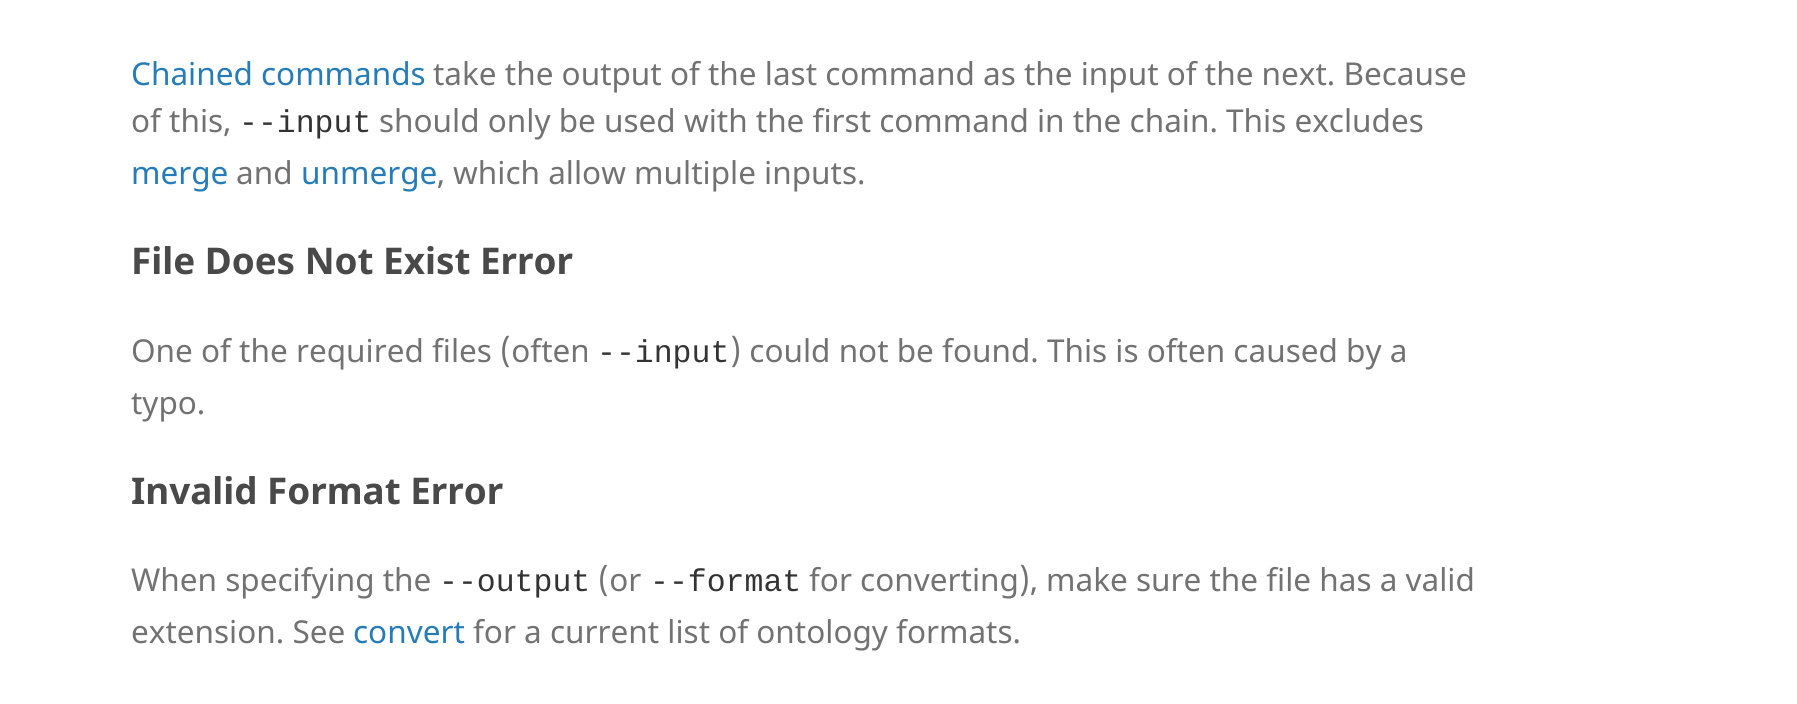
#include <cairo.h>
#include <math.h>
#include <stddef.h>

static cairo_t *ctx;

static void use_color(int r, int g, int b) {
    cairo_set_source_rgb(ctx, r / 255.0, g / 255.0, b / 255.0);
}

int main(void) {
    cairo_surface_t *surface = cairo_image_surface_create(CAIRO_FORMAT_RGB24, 1797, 704);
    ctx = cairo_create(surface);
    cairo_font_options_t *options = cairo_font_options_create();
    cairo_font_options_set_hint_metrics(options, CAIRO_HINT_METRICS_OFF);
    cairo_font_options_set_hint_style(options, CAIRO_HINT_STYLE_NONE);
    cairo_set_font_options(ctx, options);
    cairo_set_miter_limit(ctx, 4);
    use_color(255, 255, 255);
    cairo_paint(ctx);
    cairo_select_font_face(ctx, "Noto Sans", CAIRO_FONT_SLANT_NORMAL, CAIRO_FONT_WEIGHT_NORMAL);
    cairo_set_font_size(ctx, 31.5);
    use_color(38, 124, 185);
    cairo_move_to(ctx, 131, 85);
    cairo_show_text(ctx, "Chained commands");
    use_color(114, 114, 114);
    cairo_move_to(ctx, 433, 85);
    cairo_show_text(ctx, "take the output of the last command as the input of the next. Because");
    cairo_move_to(ctx, 131, 132);
    cairo_show_text(ctx, "of this,");
    cairo_select_font_face(ctx, "Liberation Mono", CAIRO_FONT_SLANT_NORMAL, CAIRO_FONT_WEIGHT_NORMAL);
    use_color(51, 51, 51);
    cairo_move_to(ctx, 239, 132);
    cairo_show_text(ctx, "--input");
    cairo_select_font_face(ctx, "Noto Sans", CAIRO_FONT_SLANT_NORMAL, CAIRO_FONT_WEIGHT_NORMAL);
    use_color(114, 114, 114);
    cairo_move_to(ctx, 379, 132);
    cairo_show_text(ctx, "should only be used with the first command in the chain. This excludes");
    use_color(38, 124, 185);
    cairo_move_to(ctx, 131, 184);
    cairo_show_text(ctx, "merge");
    use_color(114, 114, 114);
    cairo_move_to(ctx, 236, 184);
    cairo_show_text(ctx, "and");
    use_color(38, 124, 185);
    cairo_move_to(ctx, 301, 184);
    cairo_show_text(ctx, "unmerge");
    use_color(114, 114, 114);
    cairo_move_to(ctx, 437, 184);
    cairo_show_text(ctx, ", which allow multiple inputs.");
    cairo_select_font_face(ctx, "Noto Sans", CAIRO_FONT_SLANT_NORMAL, CAIRO_FONT_WEIGHT_BOLD);
    cairo_set_font_size(ctx, 36.8);
    use_color(73, 73, 73);
    cairo_move_to(ctx, 131, 274);
    cairo_show_text(ctx, "File Does Not Exist Error");
    cairo_select_font_face(ctx, "Noto Sans", CAIRO_FONT_SLANT_NORMAL, CAIRO_FONT_WEIGHT_NORMAL);
    cairo_set_font_size(ctx, 31.5);
    use_color(114, 114, 114);
    cairo_move_to(ctx, 131, 362);
    cairo_show_text(ctx, "One of the required files (often");
    cairo_select_font_face(ctx, "Liberation Mono", CAIRO_FONT_SLANT_NORMAL, CAIRO_FONT_WEIGHT_NORMAL);
    use_color(51, 51, 51);
    cairo_move_to(ctx, 597, 362);
    cairo_show_text(ctx, "--input");
    cairo_select_font_face(ctx, "Noto Sans", CAIRO_FONT_SLANT_NORMAL, CAIRO_FONT_WEIGHT_NORMAL);
    use_color(114, 114, 114);
    cairo_move_to(ctx, 730, 362);
    cairo_show_text(ctx, ") could not be found. This is often caused by a");
    cairo_move_to(ctx, 131, 414);
    cairo_show_text(ctx, "typo.");
    cairo_select_font_face(ctx, "Noto Sans", CAIRO_FONT_SLANT_NORMAL, CAIRO_FONT_WEIGHT_BOLD);
    cairo_set_font_size(ctx, 36.8);
    use_color(73, 73, 73);
    cairo_move_to(ctx, 131, 504);
    cairo_show_text(ctx, "Invalid Format Error");
    cairo_select_font_face(ctx, "Noto Sans", CAIRO_FONT_SLANT_NORMAL, CAIRO_FONT_WEIGHT_NORMAL);
    cairo_set_font_size(ctx, 31.5);
    use_color(114, 114, 114);
    cairo_move_to(ctx, 131, 591);
    cairo_show_text(ctx, "When specifying the");
    cairo_select_font_face(ctx, "Liberation Mono", CAIRO_FONT_SLANT_NORMAL, CAIRO_FONT_WEIGHT_NORMAL);
    use_color(51, 51, 51);
    cairo_move_to(ctx, 439, 591);
    cairo_show_text(ctx, "--output");
    cairo_select_font_face(ctx, "Noto Sans", CAIRO_FONT_SLANT_NORMAL, CAIRO_FONT_WEIGHT_NORMAL);
    use_color(114, 114, 114);
    cairo_move_to(ctx, 598, 591);
    cairo_show_text(ctx, "(or");
    cairo_select_font_face(ctx, "Liberation Mono", CAIRO_FONT_SLANT_NORMAL, CAIRO_FONT_WEIGHT_NORMAL);
    use_color(51, 51, 51);
    cairo_move_to(ctx, 650, 591);
    cairo_show_text(ctx, "--format");
    cairo_select_font_face(ctx, "Noto Sans", CAIRO_FONT_SLANT_NORMAL, CAIRO_FONT_WEIGHT_NORMAL);
    use_color(114, 114, 114);
    cairo_move_to(ctx, 809, 591);
    cairo_show_text(ctx, "for converting), make sure the file has a valid");
    cairo_move_to(ctx, 131, 643);
    cairo_show_text(ctx, "extension. See");
    use_color(38, 124, 185);
    cairo_move_to(ctx, 353, 643);
    cairo_show_text(ctx, "convert");
    use_color(114, 114, 114);
    cairo_move_to(ctx, 473, 643);
    cairo_show_text(ctx, "for a current list of ontology formats.");
    cairo_surface_write_to_png(surface, "result.png");
    cairo_font_options_destroy(options);
    cairo_destroy(ctx);
    cairo_surface_destroy(surface);
    return 0;
}
